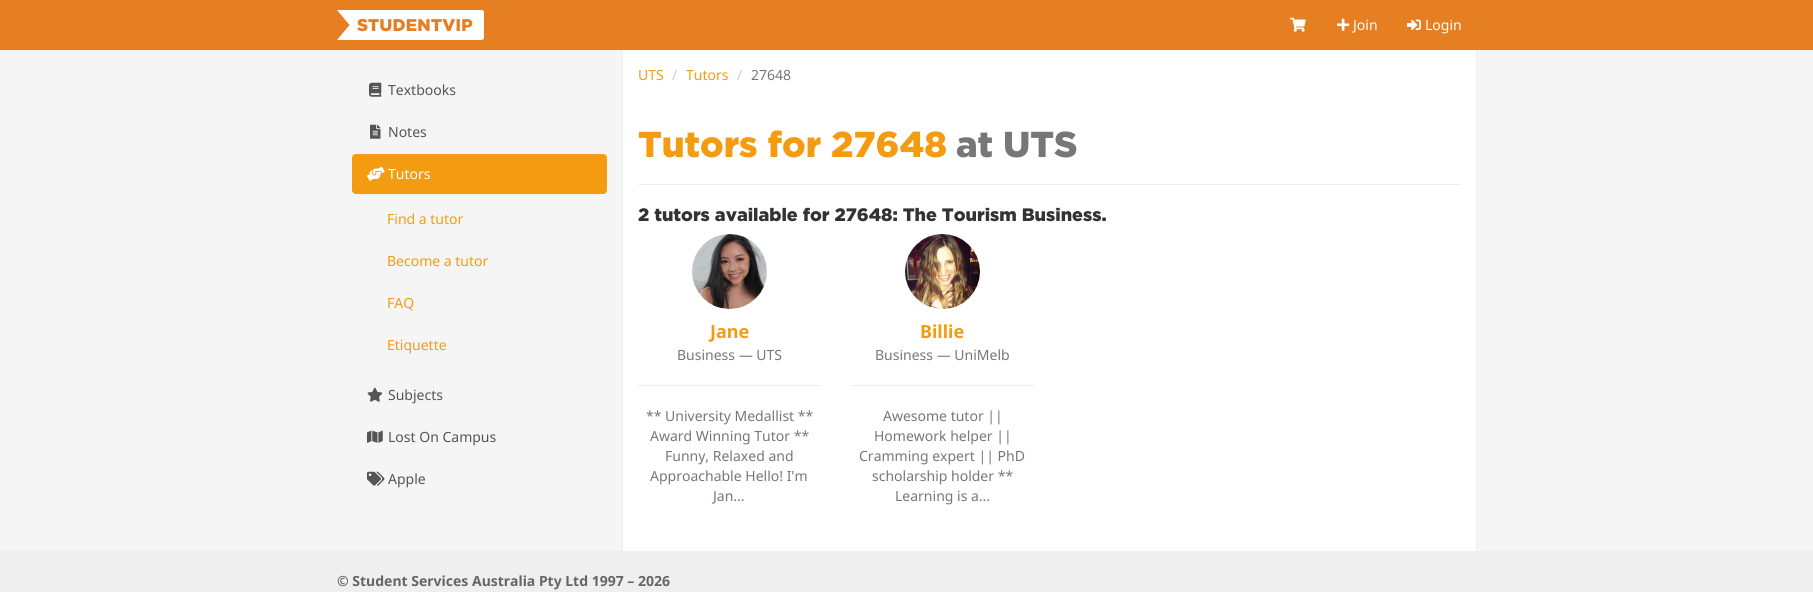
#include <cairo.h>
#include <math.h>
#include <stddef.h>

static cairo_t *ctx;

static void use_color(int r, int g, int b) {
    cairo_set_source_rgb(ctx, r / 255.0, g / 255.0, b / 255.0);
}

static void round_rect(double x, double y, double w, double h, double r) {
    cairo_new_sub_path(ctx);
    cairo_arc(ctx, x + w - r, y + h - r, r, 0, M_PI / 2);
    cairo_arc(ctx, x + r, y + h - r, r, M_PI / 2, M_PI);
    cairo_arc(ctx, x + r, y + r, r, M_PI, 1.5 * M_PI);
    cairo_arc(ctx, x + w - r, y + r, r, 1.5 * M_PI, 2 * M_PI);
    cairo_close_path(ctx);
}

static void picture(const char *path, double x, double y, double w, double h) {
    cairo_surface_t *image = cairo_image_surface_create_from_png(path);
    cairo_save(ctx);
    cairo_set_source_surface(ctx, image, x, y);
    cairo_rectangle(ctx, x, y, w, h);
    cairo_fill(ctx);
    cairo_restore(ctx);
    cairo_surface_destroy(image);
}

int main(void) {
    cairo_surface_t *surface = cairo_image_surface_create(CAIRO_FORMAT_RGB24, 1813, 592);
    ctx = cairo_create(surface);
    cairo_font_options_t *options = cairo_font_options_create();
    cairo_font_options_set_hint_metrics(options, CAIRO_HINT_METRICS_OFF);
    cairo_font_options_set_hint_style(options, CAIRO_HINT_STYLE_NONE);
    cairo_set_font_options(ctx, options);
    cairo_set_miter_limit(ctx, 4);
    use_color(245, 245, 245);
    cairo_paint(ctx);
    use_color(230, 126, 34);
    cairo_rectangle(ctx, 0, 0, 1813, 50);
    cairo_fill(ctx);
    picture("img1.png", 337, 10, 147, 30);
    picture("img2.png", 1290, 17, 16, 15);
    picture("img3.png", 1337, 18, 13, 13);
    cairo_select_font_face(ctx, "Noto Sans", CAIRO_FONT_SLANT_NORMAL, CAIRO_FONT_WEIGHT_NORMAL);
    cairo_set_font_size(ctx, 14);
    use_color(255, 255, 255);
    cairo_move_to(ctx, 1353, 30);
    cairo_show_text(ctx, "Join");
    picture("img4.png", 1407, 19, 14, 12);
    cairo_move_to(ctx, 1425, 30);
    cairo_show_text(ctx, "Login");
    picture("img5.png", 369, 82, 13, 15);
    use_color(85, 85, 85);
    cairo_move_to(ctx, 388, 95);
    cairo_show_text(ctx, "Textbooks");
    picture("img6.png", 370, 124, 11, 15);
    cairo_move_to(ctx, 388, 137);
    cairo_show_text(ctx, "Notes");
    use_color(243, 156, 18);
    round_rect(352, 154, 255, 40, 4);
    cairo_fill(ctx);
    picture("img7.png", 367, 166, 18, 15);
    use_color(255, 255, 255);
    cairo_move_to(ctx, 388, 179);
    cairo_show_text(ctx, "Tutors");
    use_color(243, 156, 18);
    cairo_move_to(ctx, 387, 224);
    cairo_show_text(ctx, "Find a tutor");
    cairo_move_to(ctx, 387, 266);
    cairo_show_text(ctx, "Become a tutor");
    cairo_move_to(ctx, 387, 308);
    cairo_show_text(ctx, "FAQ");
    cairo_move_to(ctx, 387, 350);
    cairo_show_text(ctx, "Etiquette");
    picture("img8.png", 367, 387, 16, 15);
    use_color(85, 85, 85);
    cairo_move_to(ctx, 388, 400);
    cairo_show_text(ctx, "Subjects");
    picture("img9.png", 367, 430, 16, 13);
    cairo_move_to(ctx, 388, 442);
    cairo_show_text(ctx, "Lost On Campus");
    picture("img10.png", 367, 471, 18, 15);
    cairo_move_to(ctx, 388, 484);
    cairo_show_text(ctx, "Apple");
    use_color(255, 255, 255);
    cairo_rectangle(ctx, 623, 50, 853, 501);
    cairo_fill(ctx);
    use_color(238, 238, 238);
    cairo_rectangle(ctx, 1476, 50, 1, 501);
    cairo_fill(ctx);
    cairo_rectangle(ctx, 622, 50, 1, 501);
    cairo_fill(ctx);
    use_color(243, 156, 18);
    cairo_move_to(ctx, 638, 80);
    cairo_show_text(ctx, "UTS");
    use_color(204, 204, 204);
    cairo_move_to(ctx, 672, 80);
    cairo_show_text(ctx, "/");
    use_color(243, 156, 18);
    cairo_move_to(ctx, 686, 80);
    cairo_show_text(ctx, "Tutors");
    use_color(204, 204, 204);
    cairo_move_to(ctx, 737, 80);
    cairo_show_text(ctx, "/");
    use_color(119, 119, 119);
    cairo_move_to(ctx, 751, 80);
    cairo_show_text(ctx, "27648");
    use_color(238, 238, 238);
    cairo_rectangle(ctx, 638, 184, 823, 1);
    cairo_fill(ctx);
    cairo_select_font_face(ctx, "Gotham Black", CAIRO_FONT_SLANT_NORMAL, CAIRO_FONT_WEIGHT_NORMAL);
    cairo_set_font_size(ctx, 36);
    use_color(243, 156, 18);
    cairo_move_to(ctx, 638, 157);
    cairo_show_text(ctx, "Tutors for 27648");
    use_color(119, 119, 119);
    cairo_move_to(ctx, 956, 157);
    cairo_show_text(ctx, "at UTS");
    cairo_set_font_size(ctx, 18);
    use_color(51, 51, 51);
    cairo_move_to(ctx, 638, 221);
    cairo_show_text(ctx, "2 tutors available for 27648: The Tourism Business.");
    picture("img11.png", 692, 234, 75, 75);
    cairo_select_font_face(ctx, "Noto Sans", CAIRO_FONT_SLANT_NORMAL, CAIRO_FONT_WEIGHT_BOLD);
    use_color(243, 156, 18);
    cairo_move_to(ctx, 710, 338);
    cairo_show_text(ctx, "Jane");
    cairo_select_font_face(ctx, "Noto Sans", CAIRO_FONT_SLANT_NORMAL, CAIRO_FONT_WEIGHT_NORMAL);
    cairo_set_font_size(ctx, 14);
    use_color(119, 119, 119);
    cairo_move_to(ctx, 677, 360);
    cairo_show_text(ctx, "Business — UTS");
    use_color(238, 238, 238);
    cairo_rectangle(ctx, 638, 385, 183, 1);
    cairo_fill(ctx);
    use_color(119, 119, 119);
    cairo_move_to(ctx, 646, 421);
    cairo_show_text(ctx, "** University Medallist **");
    cairo_move_to(ctx, 650, 441);
    cairo_show_text(ctx, "Award Winning Tutor **");
    cairo_move_to(ctx, 665, 461);
    cairo_show_text(ctx, "Funny, Relaxed and");
    cairo_move_to(ctx, 650, 481);
    cairo_show_text(ctx, "Approachable Hello! I'm");
    cairo_move_to(ctx, 713, 501);
    cairo_show_text(ctx, "Jan...");
    picture("img12.png", 905, 234, 75, 75);
    cairo_select_font_face(ctx, "Noto Sans", CAIRO_FONT_SLANT_NORMAL, CAIRO_FONT_WEIGHT_BOLD);
    cairo_set_font_size(ctx, 18);
    use_color(243, 156, 18);
    cairo_move_to(ctx, 920, 338);
    cairo_show_text(ctx, "Billie");
    cairo_select_font_face(ctx, "Noto Sans", CAIRO_FONT_SLANT_NORMAL, CAIRO_FONT_WEIGHT_NORMAL);
    cairo_set_font_size(ctx, 14);
    use_color(119, 119, 119);
    cairo_move_to(ctx, 875, 360);
    cairo_show_text(ctx, "Business — UniMelb");
    use_color(238, 238, 238);
    cairo_rectangle(ctx, 851, 385, 183, 1);
    cairo_fill(ctx);
    use_color(119, 119, 119);
    cairo_move_to(ctx, 883, 421);
    cairo_show_text(ctx, "Awesome tutor ||");
    cairo_move_to(ctx, 874, 441);
    cairo_show_text(ctx, "Homework helper ||");
    cairo_move_to(ctx, 859, 461);
    cairo_show_text(ctx, "Cramming expert || PhD");
    cairo_move_to(ctx, 872, 481);
    cairo_show_text(ctx, "scholarship holder **");
    cairo_move_to(ctx, 895, 501);
    cairo_show_text(ctx, "Learning is a...");
    use_color(239, 239, 239);
    cairo_rectangle(ctx, 0, 551, 1813, 41);
    cairo_fill(ctx);
    cairo_select_font_face(ctx, "Noto Sans", CAIRO_FONT_SLANT_NORMAL, CAIRO_FONT_WEIGHT_BOLD);
    use_color(102, 102, 102);
    cairo_move_to(ctx, 337, 586);
    cairo_show_text(ctx, "© Student Services Australia Pty Ltd 1997 – 2026");
    cairo_surface_write_to_png(surface, "result.png");
    cairo_font_options_destroy(options);
    cairo_destroy(ctx);
    cairo_surface_destroy(surface);
    return 0;
}
